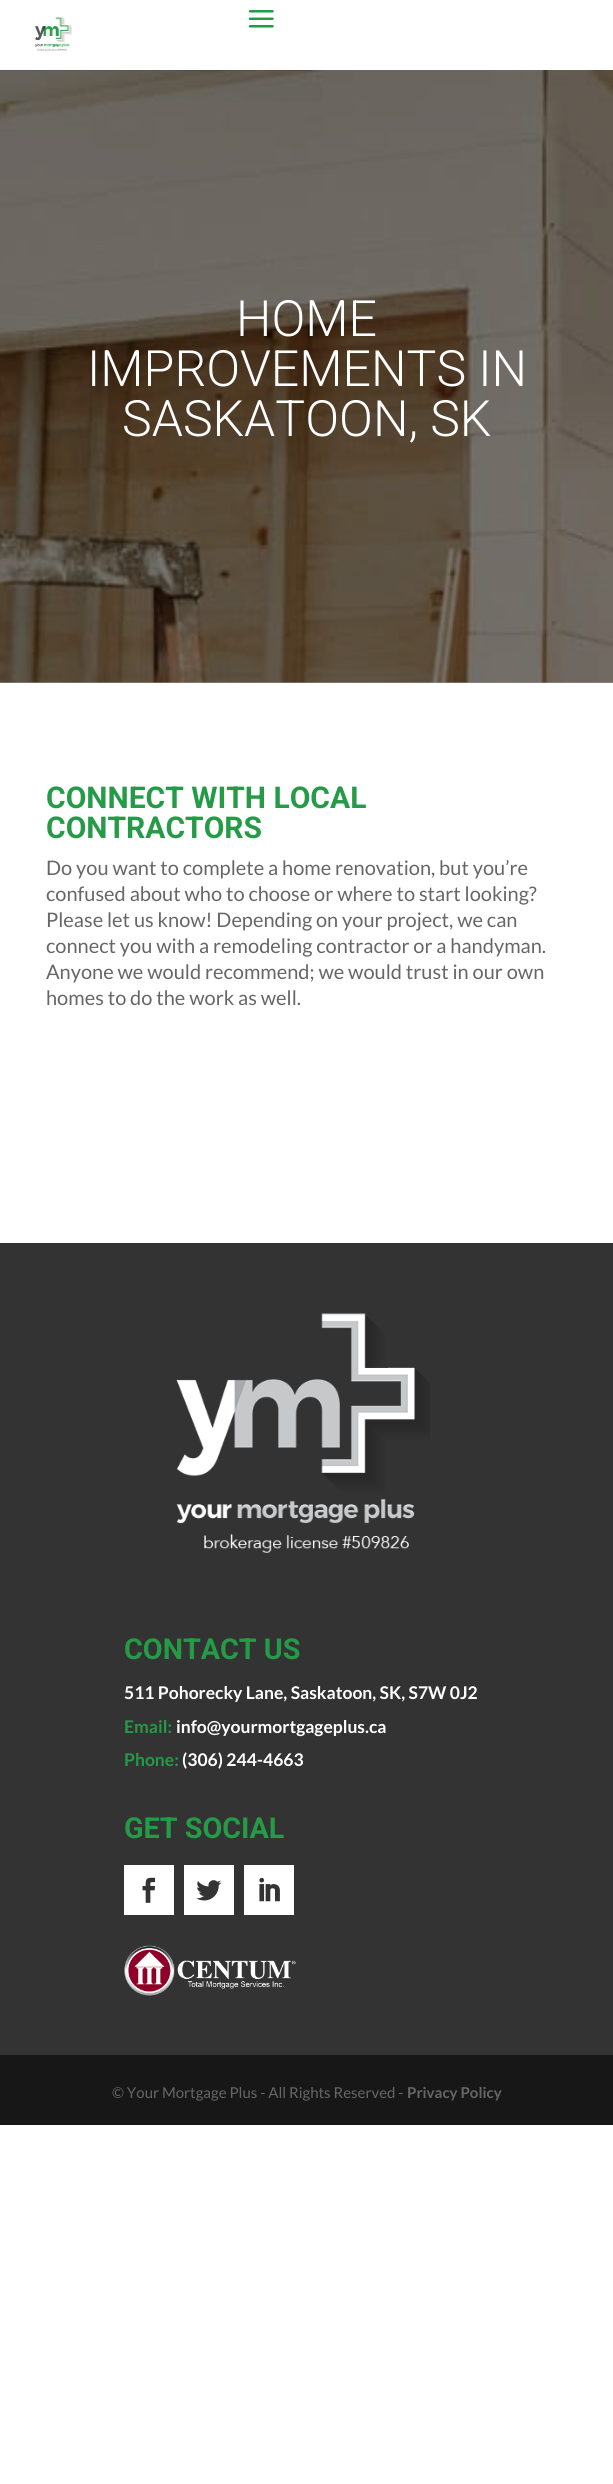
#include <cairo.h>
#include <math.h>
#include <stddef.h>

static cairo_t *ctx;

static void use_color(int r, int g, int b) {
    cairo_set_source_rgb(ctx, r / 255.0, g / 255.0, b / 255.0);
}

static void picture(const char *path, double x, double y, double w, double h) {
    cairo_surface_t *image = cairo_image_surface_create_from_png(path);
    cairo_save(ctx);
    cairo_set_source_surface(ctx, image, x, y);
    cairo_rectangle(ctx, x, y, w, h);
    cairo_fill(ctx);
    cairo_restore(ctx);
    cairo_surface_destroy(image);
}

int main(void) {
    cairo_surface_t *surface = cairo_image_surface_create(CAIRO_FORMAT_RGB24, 613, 2484);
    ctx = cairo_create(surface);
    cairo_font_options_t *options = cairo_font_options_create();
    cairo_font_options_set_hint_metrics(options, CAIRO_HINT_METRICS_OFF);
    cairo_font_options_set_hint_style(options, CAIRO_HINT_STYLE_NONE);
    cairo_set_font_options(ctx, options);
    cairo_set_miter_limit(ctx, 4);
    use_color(255, 255, 255);
    cairo_paint(ctx);
    use_color(153, 153, 153);
    cairo_rectangle(ctx, 0, 682, 613, 1);
    cairo_fill(ctx);
    picture("img3.png", 0, 70, 613, 613);
    cairo_set_source_rgba(ctx, 0, 0, 0, 0.1);
    cairo_new_path(ctx);
    cairo_move_to(ctx, 0, 70);
    cairo_line_to(ctx, 0, 71);
    cairo_line_to(ctx, 313, 71);
    cairo_line_to(ctx, 313, 1);
    cairo_line_to(ctx, 312, 1);
    cairo_line_to(ctx, 312, 70);
    cairo_close_path(ctx);
    cairo_fill(ctx);
    use_color(255, 255, 255);
    cairo_rectangle(ctx, 312, 1, 1, 69);
    cairo_fill(ctx);
    picture("img1.png", 35, 16, 37, 36);
    picture("img2.png", 248, 10, 26, 18);
    cairo_select_font_face(ctx, "Roboto Light", CAIRO_FONT_SLANT_NORMAL, CAIRO_FONT_WEIGHT_NORMAL);
    cairo_set_font_size(ctx, 50);
    cairo_move_to(ctx, 236, 336);
    cairo_show_text(ctx, "HOME");
    cairo_move_to(ctx, 87, 386);
    cairo_show_text(ctx, "IMPROVEMENTS IN");
    cairo_move_to(ctx, 122, 436);
    cairo_show_text(ctx, "SASKATOON, SK");
    cairo_select_font_face(ctx, "Roboto", CAIRO_FONT_SLANT_NORMAL, CAIRO_FONT_WEIGHT_BOLD);
    cairo_set_font_size(ctx, 30);
    use_color(37, 154, 71);
    cairo_move_to(ctx, 46, 808);
    cairo_show_text(ctx, "CONNECT WITH LOCAL");
    cairo_move_to(ctx, 46, 838);
    cairo_show_text(ctx, "CONTRACTORS");
    cairo_select_font_face(ctx, "Lato", CAIRO_FONT_SLANT_NORMAL, CAIRO_FONT_WEIGHT_NORMAL);
    cairo_set_font_size(ctx, 20);
    use_color(102, 102, 102);
    cairo_move_to(ctx, 46, 875);
    cairo_show_text(ctx, "Do you want to complete a home renovation, but you’re");
    cairo_move_to(ctx, 46, 901);
    cairo_show_text(ctx, "confused about who to choose or where to start looking?");
    cairo_move_to(ctx, 46, 927);
    cairo_show_text(ctx, "Please let us know! Depending on your project, we can");
    cairo_move_to(ctx, 46, 953);
    cairo_show_text(ctx, "connect you with a remodeling contractor or a handyman.");
    cairo_move_to(ctx, 46, 979);
    cairo_show_text(ctx, "Anyone we would recommend; we would trust in our own");
    cairo_move_to(ctx, 46, 1005);
    cairo_show_text(ctx, "homes to do the work as well.");
    use_color(51, 51, 51);
    cairo_rectangle(ctx, 0, 1243, 613, 812);
    cairo_fill(ctx);
    picture("img4.png", 176, 1313, 254, 240);
    cairo_select_font_face(ctx, "Roboto", CAIRO_FONT_SLANT_NORMAL, CAIRO_FONT_WEIGHT_BOLD);
    cairo_set_font_size(ctx, 28.75);
    use_color(37, 154, 71);
    cairo_move_to(ctx, 124, 1659);
    cairo_show_text(ctx, "CONTACT US");
    cairo_select_font_face(ctx, "Lato", CAIRO_FONT_SLANT_NORMAL, CAIRO_FONT_WEIGHT_BOLD);
    cairo_set_font_size(ctx, 17.5);
    use_color(255, 255, 255);
    cairo_move_to(ctx, 124, 1699);
    cairo_show_text(ctx, "511 Pohorecky Lane, Saskatoon, SK, S7W 0J2");
    use_color(37, 154, 71);
    cairo_move_to(ctx, 124, 1733);
    cairo_show_text(ctx, "Email:");
    use_color(255, 255, 255);
    cairo_move_to(ctx, 176, 1733);
    cairo_show_text(ctx, "info@yourmortgageplus.ca");
    use_color(37, 154, 71);
    cairo_move_to(ctx, 124, 1766);
    cairo_show_text(ctx, "Phone:");
    use_color(255, 255, 255);
    cairo_move_to(ctx, 182, 1766);
    cairo_show_text(ctx, "(306) 244-4663");
    cairo_select_font_face(ctx, "Roboto", CAIRO_FONT_SLANT_NORMAL, CAIRO_FONT_WEIGHT_BOLD);
    cairo_set_font_size(ctx, 28.75);
    use_color(37, 154, 71);
    cairo_move_to(ctx, 124, 1838);
    cairo_show_text(ctx, "GET SOCIAL");
    use_color(255, 255, 255);
    cairo_rectangle(ctx, 124, 1865, 50, 50);
    cairo_fill(ctx);
    picture("img5.png", 142, 1877, 14, 26);
    cairo_rectangle(ctx, 184, 1865, 50, 50);
    cairo_fill(ctx);
    picture("img6.png", 196, 1880, 26, 21);
    cairo_rectangle(ctx, 244, 1865, 50, 50);
    cairo_fill(ctx);
    picture("img7.png", 259, 1877, 21, 25);
    picture("img8.png", 124, 1945, 172, 51);
    use_color(23, 23, 23);
    cairo_rectangle(ctx, 0, 2055, 613, 70);
    cairo_fill(ctx);
    cairo_select_font_face(ctx, "Lato", CAIRO_FONT_SLANT_NORMAL, CAIRO_FONT_WEIGHT_NORMAL);
    cairo_set_font_size(ctx, 15);
    use_color(102, 102, 102);
    cairo_move_to(ctx, 112, 2098);
    cairo_show_text(ctx, "© Your Mortgage Plus - All Rights Reserved -");
    cairo_select_font_face(ctx, "Lato", CAIRO_FONT_SLANT_NORMAL, CAIRO_FONT_WEIGHT_BOLD);
    cairo_move_to(ctx, 407, 2098);
    cairo_show_text(ctx, "Privacy Policy");
    cairo_surface_write_to_png(surface, "result.png");
    cairo_font_options_destroy(options);
    cairo_destroy(ctx);
    cairo_surface_destroy(surface);
    return 0;
}
